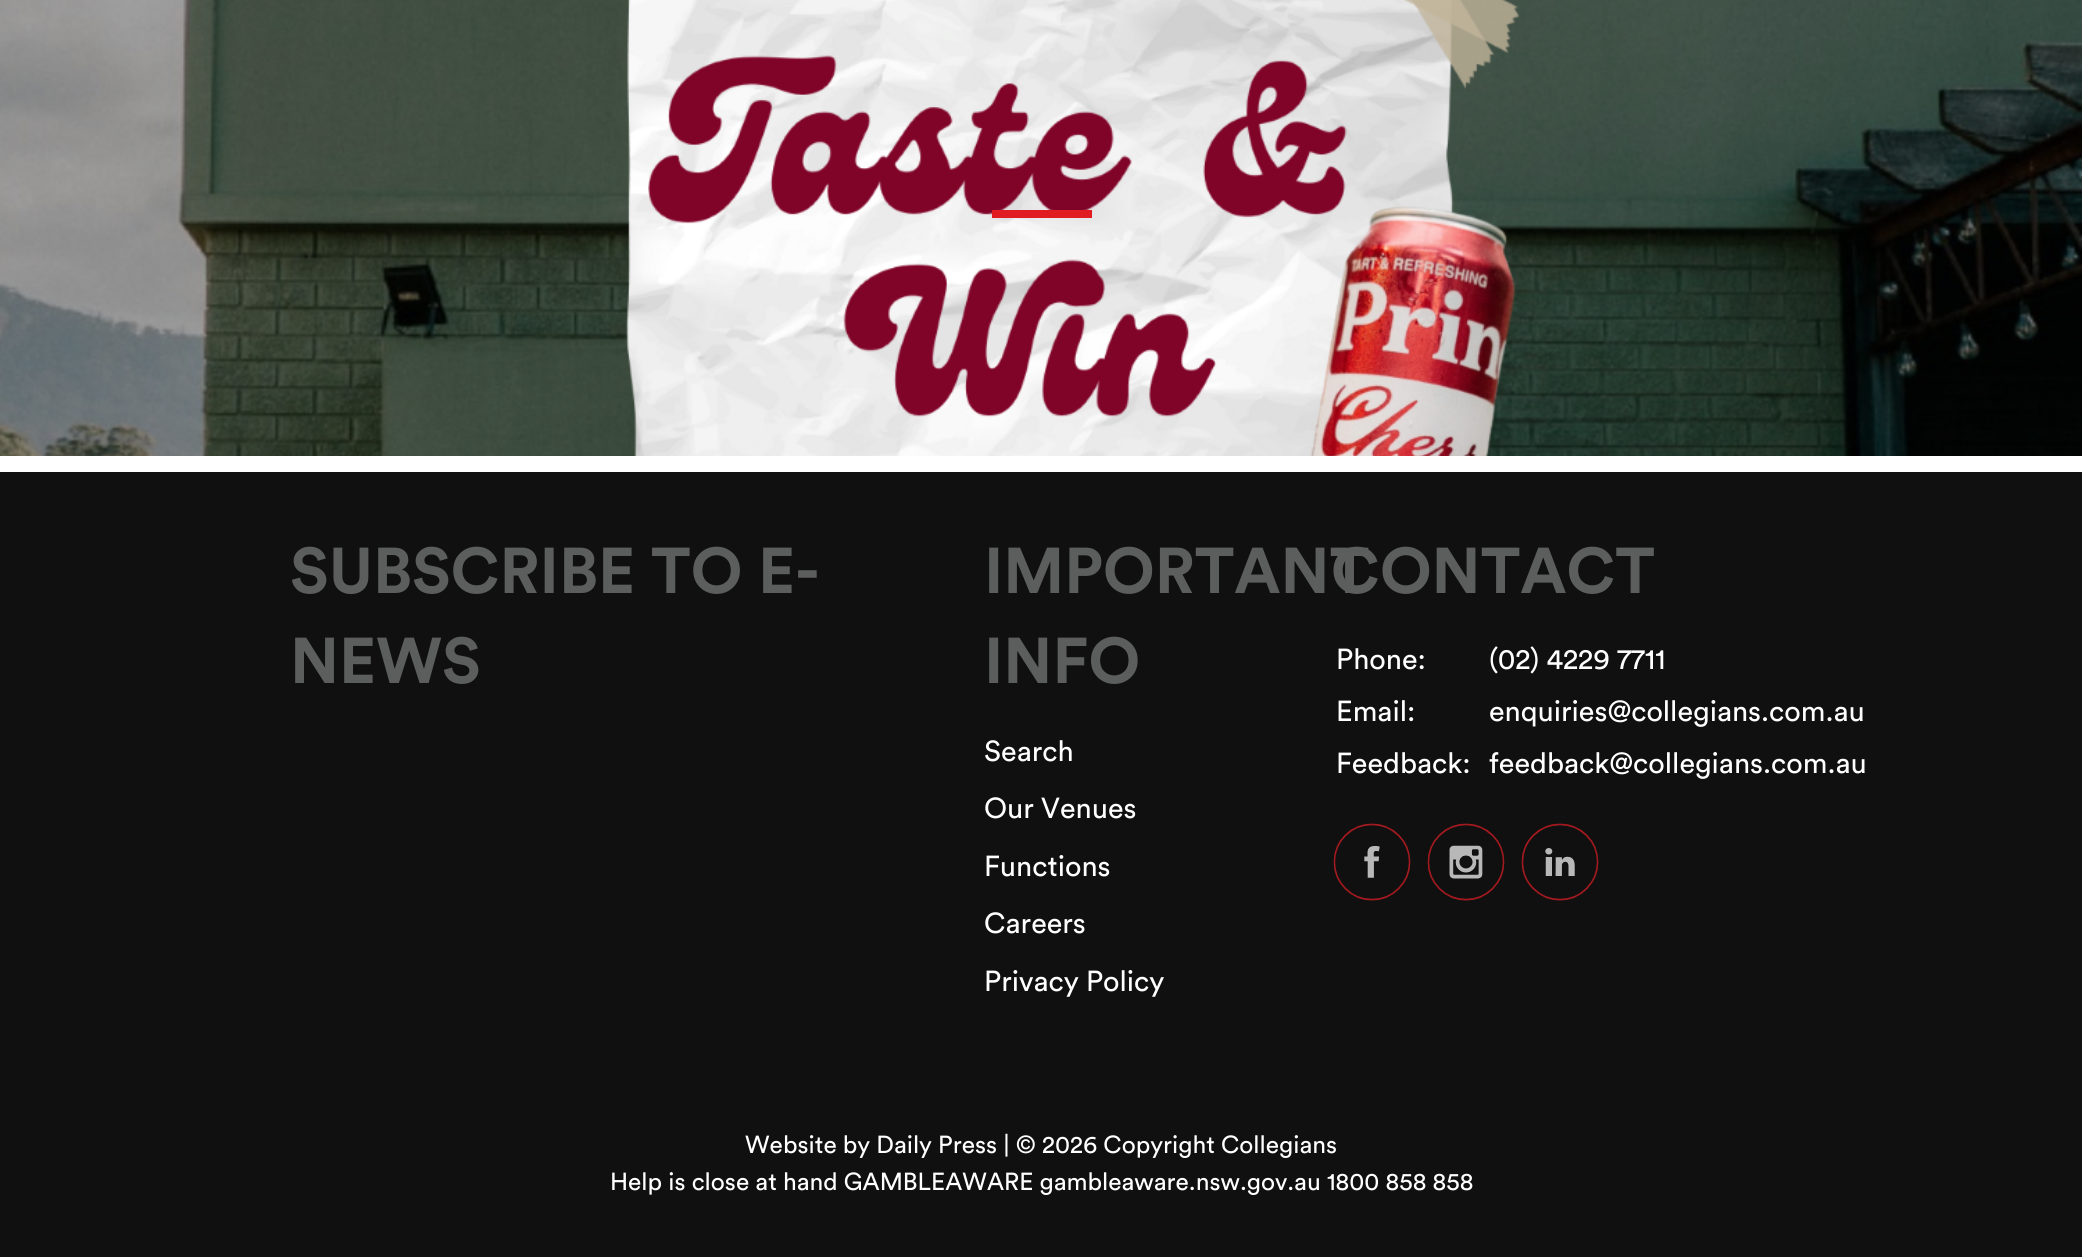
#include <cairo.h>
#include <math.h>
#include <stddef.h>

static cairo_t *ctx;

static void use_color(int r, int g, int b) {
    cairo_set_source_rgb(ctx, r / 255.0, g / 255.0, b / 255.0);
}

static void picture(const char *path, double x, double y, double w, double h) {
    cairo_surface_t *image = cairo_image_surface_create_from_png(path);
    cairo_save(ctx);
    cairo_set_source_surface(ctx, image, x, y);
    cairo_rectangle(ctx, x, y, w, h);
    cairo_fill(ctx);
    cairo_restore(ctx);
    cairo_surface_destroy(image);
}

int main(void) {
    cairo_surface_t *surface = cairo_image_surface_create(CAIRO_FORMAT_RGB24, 2082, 1257);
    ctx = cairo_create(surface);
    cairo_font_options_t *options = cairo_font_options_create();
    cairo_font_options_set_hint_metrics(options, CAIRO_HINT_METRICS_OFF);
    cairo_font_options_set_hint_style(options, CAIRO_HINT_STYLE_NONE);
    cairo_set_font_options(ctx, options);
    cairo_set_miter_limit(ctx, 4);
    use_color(255, 255, 255);
    cairo_paint(ctx);
    picture("img1.png", 0, 0, 2082, 456);
    use_color(225, 27, 34);
    cairo_rectangle(ctx, 992, 210, 100, 8);
    cairo_fill(ctx);
    use_color(16, 16, 16);
    cairo_rectangle(ctx, 0, 472, 2082, 785);
    cairo_fill(ctx);
    cairo_select_font_face(ctx, "Circular", CAIRO_FONT_SLANT_NORMAL, CAIRO_FONT_WEIGHT_BOLD);
    cairo_set_font_size(ctx, 64);
    use_color(92, 93, 93);
    cairo_move_to(ctx, 290, 593);
    cairo_show_text(ctx, "SUBSCRIBE TO E-");
    cairo_move_to(ctx, 290, 683);
    cairo_show_text(ctx, "NEWS");
    cairo_move_to(ctx, 984, 593);
    cairo_show_text(ctx, "IMPORTANT");
    cairo_move_to(ctx, 984, 683);
    cairo_show_text(ctx, "INFO");
    cairo_select_font_face(ctx, "Circular", CAIRO_FONT_SLANT_NORMAL, CAIRO_FONT_WEIGHT_NORMAL);
    cairo_set_font_size(ctx, 28.75);
    use_color(255, 255, 255);
    cairo_move_to(ctx, 984, 761);
    cairo_show_text(ctx, "Search");
    cairo_move_to(ctx, 984, 818);
    cairo_show_text(ctx, "Our Venues");
    cairo_move_to(ctx, 984, 876);
    cairo_show_text(ctx, "Functions");
    cairo_move_to(ctx, 984, 933);
    cairo_show_text(ctx, "Careers");
    cairo_move_to(ctx, 984, 991);
    cairo_show_text(ctx, "Privacy Policy");
    cairo_select_font_face(ctx, "Circular", CAIRO_FONT_SLANT_NORMAL, CAIRO_FONT_WEIGHT_BOLD);
    cairo_set_font_size(ctx, 64);
    use_color(92, 93, 93);
    cairo_move_to(ctx, 1331, 593);
    cairo_show_text(ctx, "CONTACT");
    cairo_select_font_face(ctx, "Circular", CAIRO_FONT_SLANT_NORMAL, CAIRO_FONT_WEIGHT_NORMAL);
    cairo_set_font_size(ctx, 28.75);
    use_color(255, 255, 255);
    cairo_move_to(ctx, 1336, 669);
    cairo_show_text(ctx, "Phone:");
    cairo_move_to(ctx, 1489, 669);
    cairo_show_text(ctx, "(02) 4229 7711");
    cairo_move_to(ctx, 1336, 721);
    cairo_show_text(ctx, "Email:");
    cairo_move_to(ctx, 1489, 721);
    cairo_show_text(ctx, "enquiries@collegians.com.au");
    cairo_move_to(ctx, 1336, 773);
    cairo_show_text(ctx, "Feedback:");
    cairo_move_to(ctx, 1489, 773);
    cairo_show_text(ctx, "feedback@collegians.com.au");
    picture("img2.png", 1333, 823, 78, 78);
    picture("img3.png", 1427, 823, 78, 78);
    picture("img4.png", 1521, 823, 78, 78);
    cairo_set_font_size(ctx, 24.5);
    cairo_move_to(ctx, 745, 1153);
    cairo_show_text(ctx, "Website by Daily Press | © 2026 Copyright Collegians");
    cairo_move_to(ctx, 610, 1190);
    cairo_show_text(ctx, "Help is close at hand GAMBLEAWARE gambleaware.nsw.gov.au 1800 858 858");
    cairo_surface_write_to_png(surface, "result.png");
    cairo_font_options_destroy(options);
    cairo_destroy(ctx);
    cairo_surface_destroy(surface);
    return 0;
}
